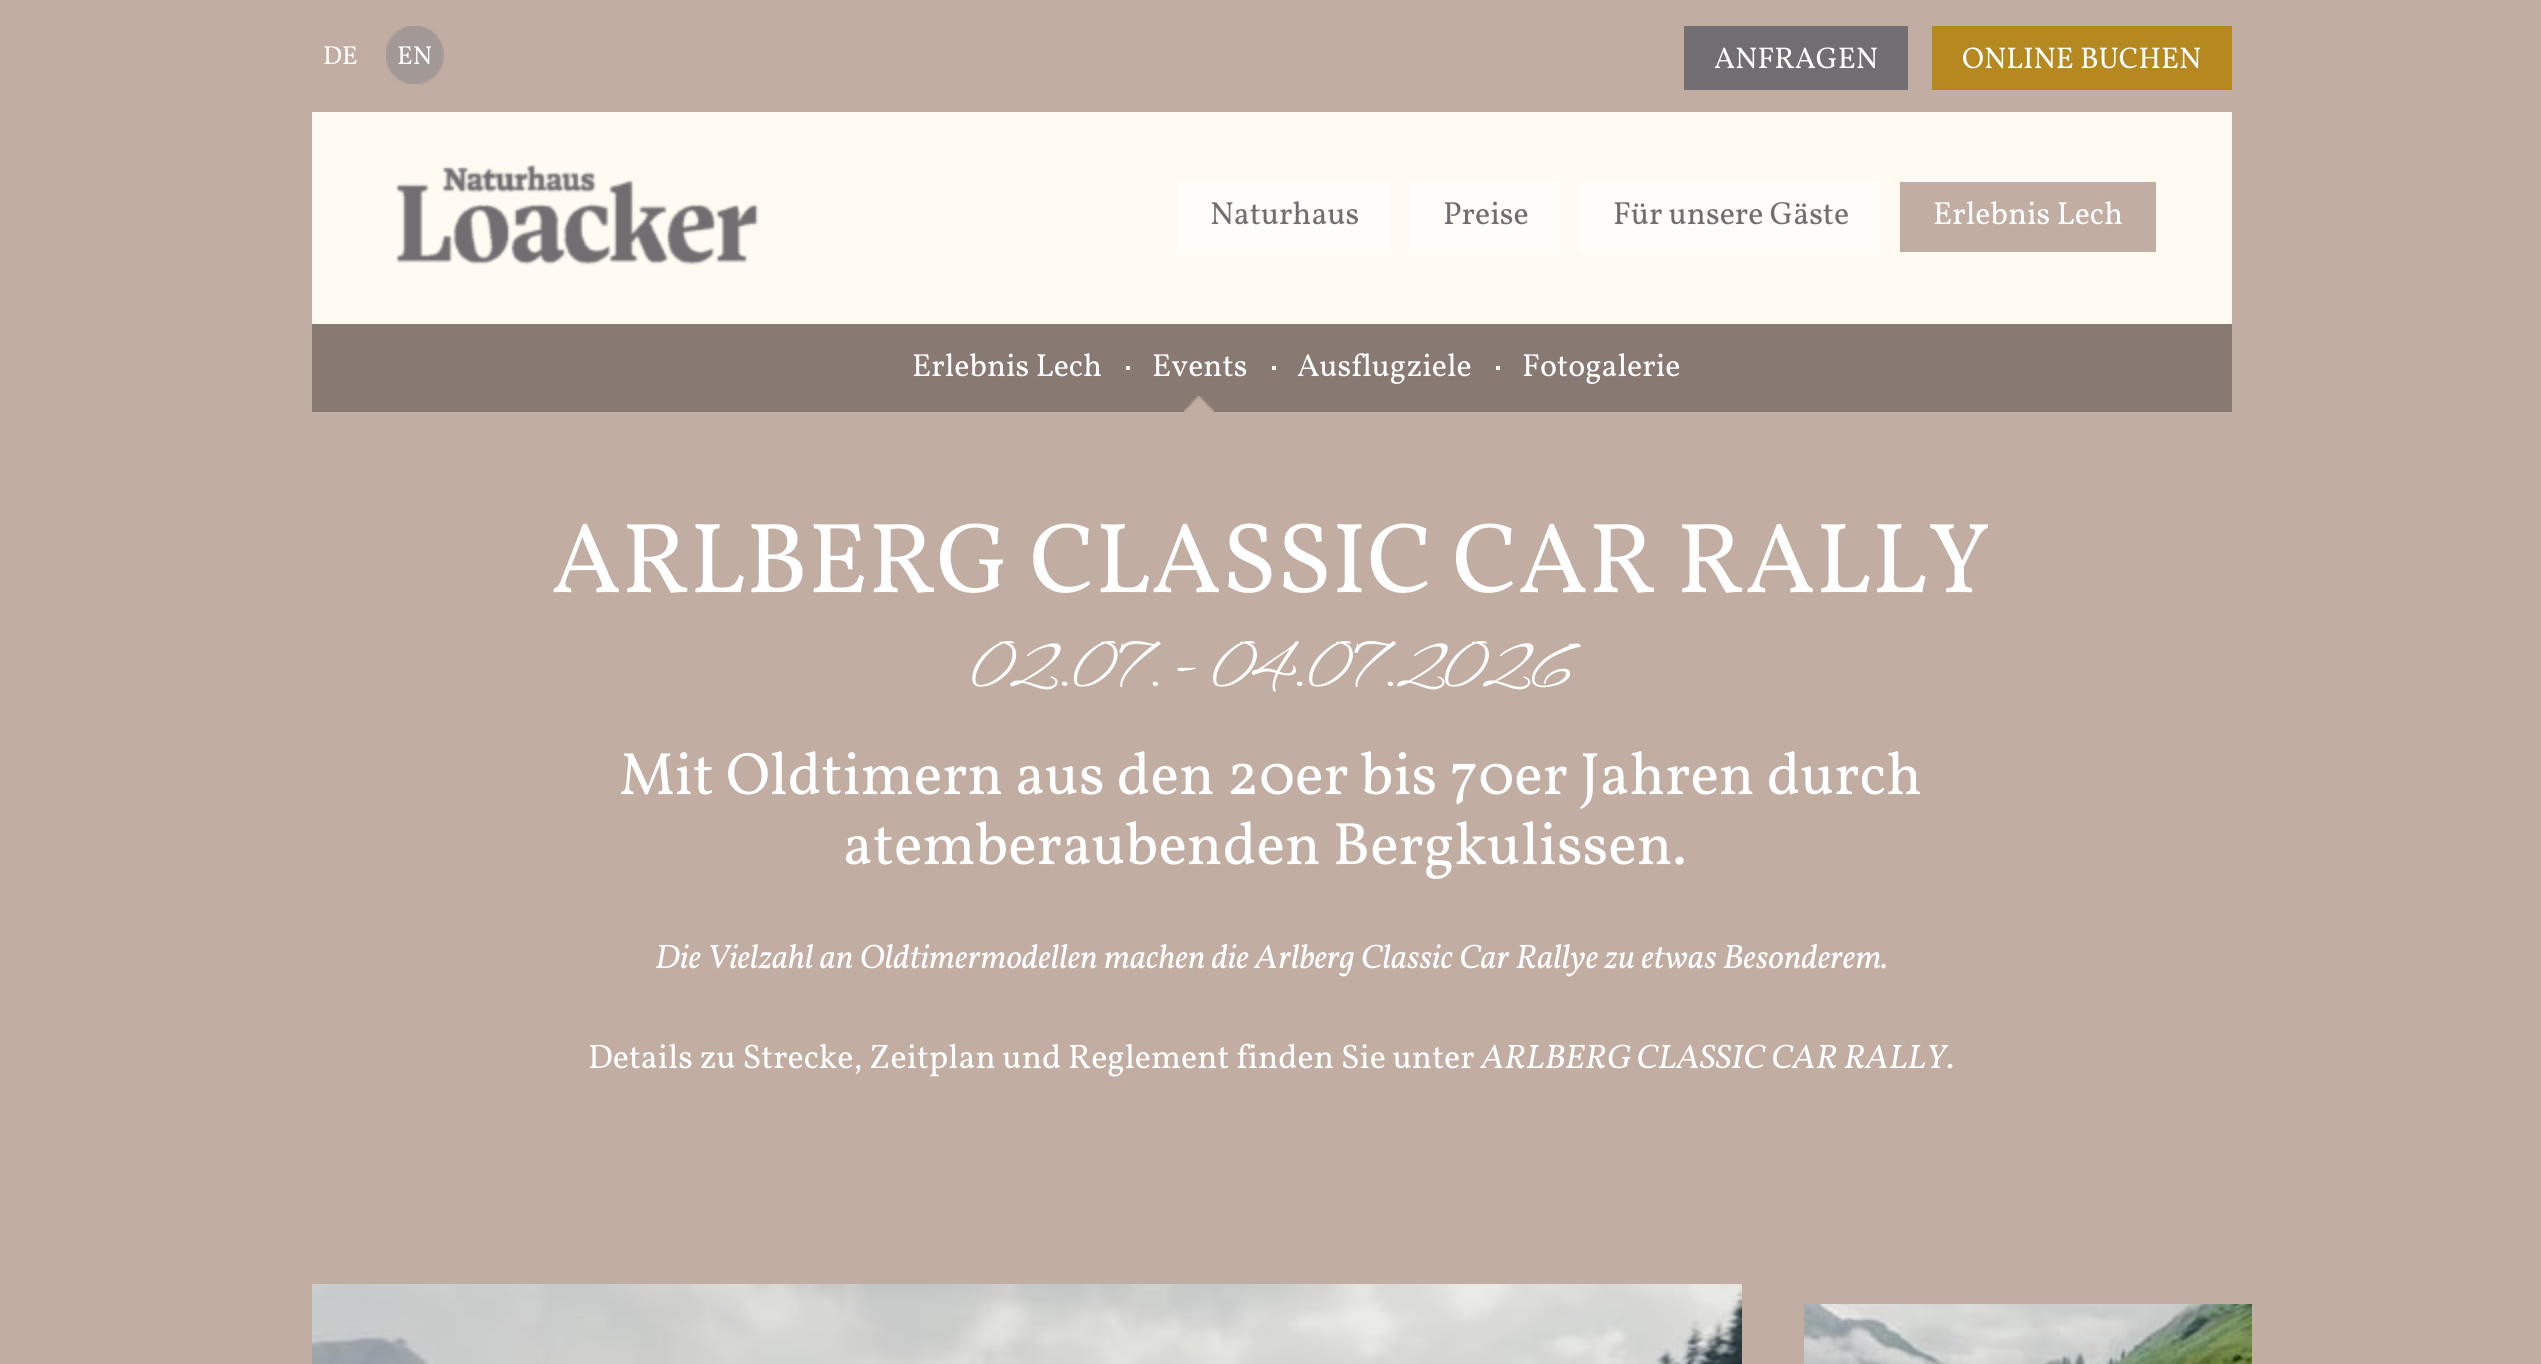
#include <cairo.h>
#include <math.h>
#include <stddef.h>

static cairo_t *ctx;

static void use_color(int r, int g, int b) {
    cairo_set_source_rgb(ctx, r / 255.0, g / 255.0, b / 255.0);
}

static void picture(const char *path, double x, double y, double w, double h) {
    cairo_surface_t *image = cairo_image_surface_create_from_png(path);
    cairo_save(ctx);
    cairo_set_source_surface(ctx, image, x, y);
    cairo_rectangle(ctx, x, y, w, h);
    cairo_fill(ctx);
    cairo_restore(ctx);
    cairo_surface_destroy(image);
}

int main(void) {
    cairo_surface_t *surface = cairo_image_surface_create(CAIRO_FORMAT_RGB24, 2541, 1364);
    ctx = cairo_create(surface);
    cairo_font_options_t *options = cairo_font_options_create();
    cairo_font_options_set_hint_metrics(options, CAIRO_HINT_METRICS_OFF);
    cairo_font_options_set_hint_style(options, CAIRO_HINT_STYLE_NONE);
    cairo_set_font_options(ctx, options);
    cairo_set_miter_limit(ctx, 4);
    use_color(194, 173, 163);
    cairo_paint(ctx);
    cairo_select_font_face(ctx, "Vollkorn", CAIRO_FONT_SLANT_NORMAL, CAIRO_FONT_WEIGHT_NORMAL);
    cairo_set_font_size(ctx, 26);
    use_color(255, 255, 255);
    cairo_move_to(ctx, 323, 64);
    cairo_show_text(ctx, "DE");
    picture("img1.png", 386, 26, 58, 58);
    cairo_move_to(ctx, 397, 64);
    cairo_show_text(ctx, "EN");
    use_color(114, 109, 113);
    cairo_rectangle(ctx, 1684, 26, 224, 64);
    cairo_fill(ctx);
    cairo_set_font_size(ctx, 30);
    use_color(255, 255, 255);
    cairo_move_to(ctx, 1714, 68);
    cairo_show_text(ctx, "ANFRAGEN");
    use_color(181, 136, 32);
    cairo_rectangle(ctx, 1932, 26, 300, 64);
    cairo_fill(ctx);
    use_color(255, 255, 255);
    cairo_move_to(ctx, 1962, 68);
    cairo_show_text(ctx, "ONLINE BUCHEN");
    use_color(255, 251, 243);
    cairo_rectangle(ctx, 312, 112, 1920, 212);
    cairo_fill(ctx);
    picture("img2.png", 395, 164, 364, 101);
    use_color(194, 173, 163);
    cairo_rectangle(ctx, 1900, 182, 256, 70);
    cairo_fill(ctx);
    cairo_set_font_size(ctx, 32);
    use_color(255, 255, 255);
    cairo_move_to(ctx, 1933, 224);
    cairo_show_text(ctx, "Erlebnis Lech");
    use_color(136, 121, 114);
    cairo_rectangle(ctx, 312, 324, 1920, 88);
    cairo_fill(ctx);
    use_color(255, 255, 255);
    cairo_move_to(ctx, 912, 376);
    cairo_show_text(ctx, "Erlebnis Lech");
    use_color(253, 253, 253);
    cairo_rectangle(ctx, 1126, 366, 4, 4);
    cairo_fill(ctx);
    picture("img3.png", 1184, 396, 30, 16);
    use_color(255, 255, 255);
    cairo_move_to(ctx, 1152, 376);
    cairo_show_text(ctx, "Events");
    use_color(253, 253, 253);
    cairo_rectangle(ctx, 1272, 366, 4, 4);
    cairo_fill(ctx);
    use_color(255, 255, 255);
    cairo_move_to(ctx, 1297, 376);
    cairo_show_text(ctx, "Ausflugziele");
    use_color(253, 253, 253);
    cairo_rectangle(ctx, 1496, 366, 4, 4);
    cairo_fill(ctx);
    use_color(255, 255, 255);
    cairo_move_to(ctx, 1522, 376);
    cairo_show_text(ctx, "Fotogalerie");
    use_color(255, 253, 250);
    cairo_rectangle(ctx, 1178, 182, 212, 70);
    cairo_fill(ctx);
    use_color(114, 109, 113);
    cairo_move_to(ctx, 1210, 224);
    cairo_show_text(ctx, "Naturhaus");
    use_color(255, 253, 250);
    cairo_rectangle(ctx, 1410, 182, 150, 70);
    cairo_fill(ctx);
    use_color(114, 109, 113);
    cairo_move_to(ctx, 1443, 224);
    cairo_show_text(ctx, "Preise");
    use_color(255, 253, 250);
    cairo_rectangle(ctx, 1580, 182, 300, 70);
    cairo_fill(ctx);
    use_color(114, 109, 113);
    cairo_move_to(ctx, 1613, 224);
    cairo_show_text(ctx, "Für unsere Gäste");
    cairo_set_font_size(ctx, 100);
    use_color(255, 255, 255);
    cairo_move_to(ctx, 551, 592);
    cairo_show_text(ctx, "ARLBERG CLASSIC CAR RALLY");
    cairo_select_font_face(ctx, "Alex Brush", CAIRO_FONT_SLANT_NORMAL, CAIRO_FONT_WEIGHT_NORMAL);
    cairo_set_font_size(ctx, 70);
    cairo_move_to(ctx, 970, 686);
    cairo_show_text(ctx, "02.07. - 04.07.2026");
    cairo_select_font_face(ctx, "Vollkorn", CAIRO_FONT_SLANT_NORMAL, CAIRO_FONT_WEIGHT_NORMAL);
    cairo_set_font_size(ctx, 60);
    cairo_move_to(ctx, 619, 794);
    cairo_show_text(ctx, "Mit Oldtimern aus den 20er bis 70er Jahren durch");
    cairo_move_to(ctx, 843, 864);
    cairo_show_text(ctx, "atemberaubenden Bergkulissen.");
    cairo_select_font_face(ctx, "Vollkorn", CAIRO_FONT_SLANT_ITALIC, CAIRO_FONT_WEIGHT_NORMAL);
    cairo_set_font_size(ctx, 34);
    cairo_move_to(ctx, 655, 968);
    cairo_show_text(ctx, "Die Vielzahl an Oldtimermodellen machen die Arlberg Classic Car Rallye zu etwas Besonderem.");
    cairo_select_font_face(ctx, "Vollkorn", CAIRO_FONT_SLANT_NORMAL, CAIRO_FONT_WEIGHT_NORMAL);
    cairo_move_to(ctx, 588, 1068);
    cairo_show_text(ctx, "Details zu Strecke, Zeitplan und Reglement finden Sie unter");
    cairo_select_font_face(ctx, "Vollkorn", CAIRO_FONT_SLANT_ITALIC, CAIRO_FONT_WEIGHT_NORMAL);
    cairo_move_to(ctx, 1481, 1068);
    cairo_show_text(ctx, "ARLBERG CLASSIC CAR RALLY");
    cairo_select_font_face(ctx, "Vollkorn", CAIRO_FONT_SLANT_NORMAL, CAIRO_FONT_WEIGHT_NORMAL);
    cairo_move_to(ctx, 1946, 1068);
    cairo_show_text(ctx, ".");
    picture("img4.png", 312, 1284, 1430, 80);
    picture("img5.png", 1804, 1304, 448, 60);
    cairo_surface_write_to_png(surface, "result.png");
    cairo_font_options_destroy(options);
    cairo_destroy(ctx);
    cairo_surface_destroy(surface);
    return 0;
}
